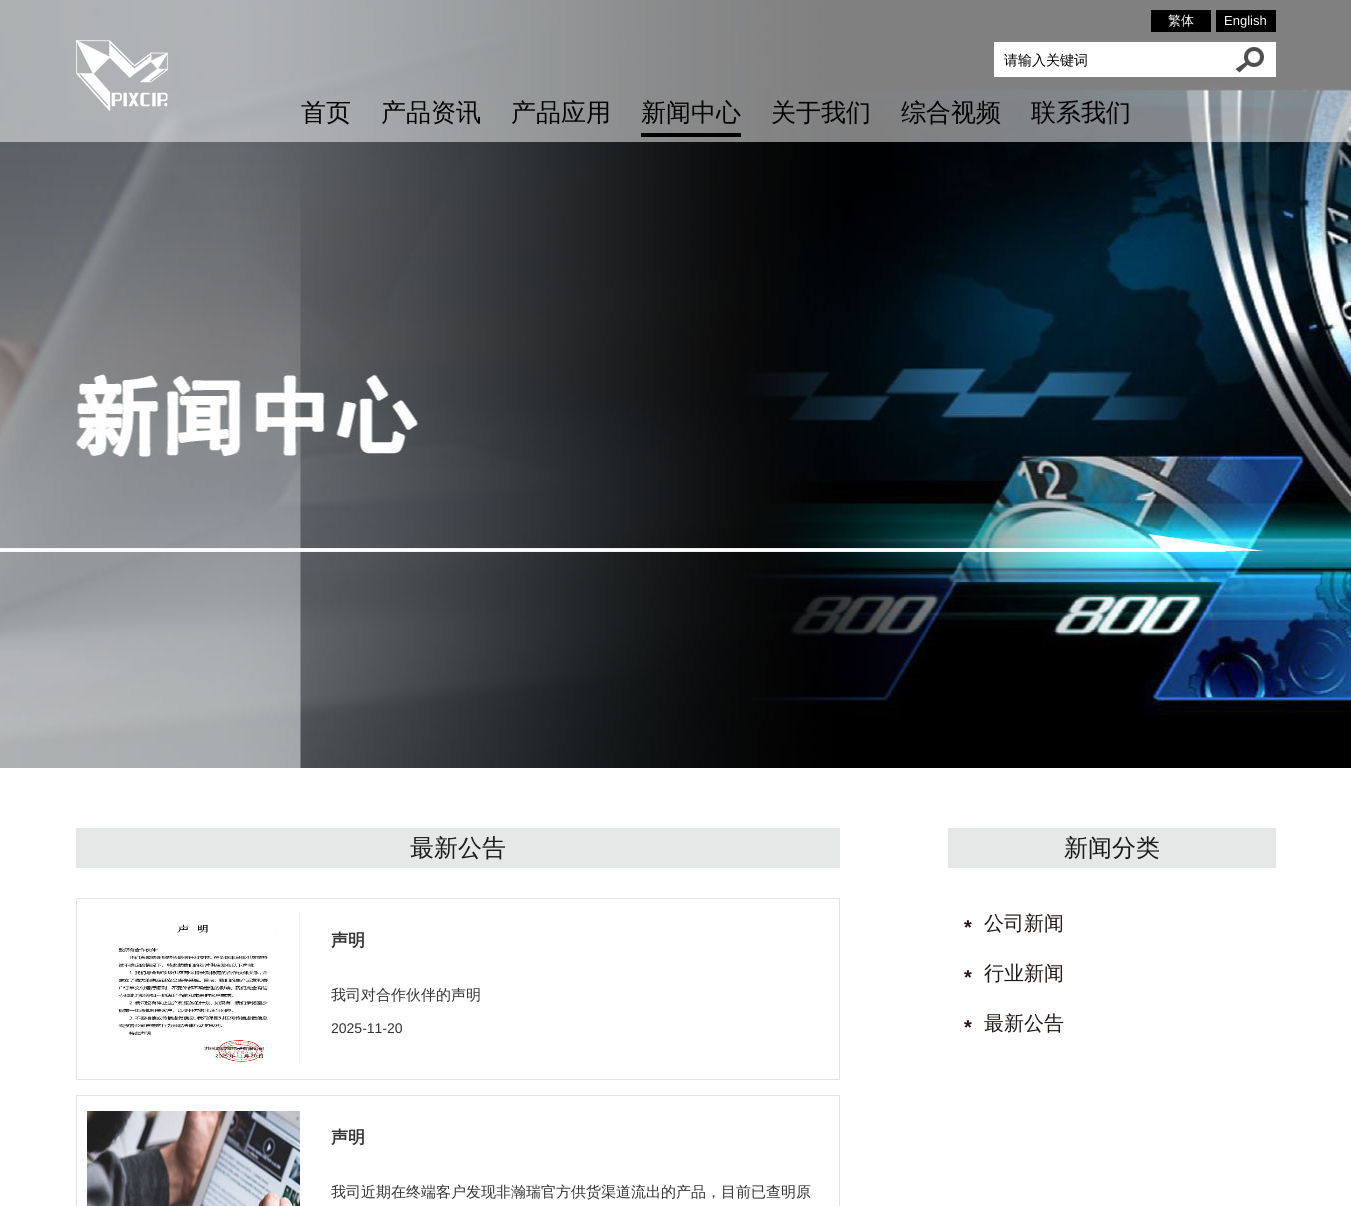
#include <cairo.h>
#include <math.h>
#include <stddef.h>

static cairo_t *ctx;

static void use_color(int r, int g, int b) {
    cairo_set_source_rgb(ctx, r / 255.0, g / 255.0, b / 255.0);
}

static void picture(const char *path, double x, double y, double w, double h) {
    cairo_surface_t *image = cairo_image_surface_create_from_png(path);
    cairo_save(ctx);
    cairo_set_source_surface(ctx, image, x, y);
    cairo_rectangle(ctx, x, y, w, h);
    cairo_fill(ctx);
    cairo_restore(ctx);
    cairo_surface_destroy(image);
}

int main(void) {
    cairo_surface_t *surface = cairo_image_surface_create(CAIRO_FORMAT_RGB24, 1351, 1206);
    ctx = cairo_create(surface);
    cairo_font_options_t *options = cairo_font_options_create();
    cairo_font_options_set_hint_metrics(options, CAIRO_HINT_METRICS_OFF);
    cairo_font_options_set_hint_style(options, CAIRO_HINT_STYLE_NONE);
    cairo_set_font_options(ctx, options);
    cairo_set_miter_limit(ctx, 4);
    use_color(255, 255, 255);
    cairo_paint(ctx);
    picture("img1.png", 0, 0, 1351, 768);
    cairo_set_source_rgba(ctx, 1, 1, 1, 0.5);
    cairo_rectangle(ctx, 0, 0, 1351, 142);
    cairo_fill(ctx);
    picture("img2.png", 76, 40, 92, 71);
    use_color(0, 0, 0);
    cairo_rectangle(ctx, 1151, 10, 60, 22);
    cairo_fill(ctx);
    cairo_select_font_face(ctx, "WenQuanYi Zen Hei Medium", CAIRO_FONT_SLANT_NORMAL, CAIRO_FONT_WEIGHT_NORMAL);
    cairo_set_font_size(ctx, 13);
    use_color(255, 255, 255);
    cairo_move_to(ctx, 1168, 25);
    cairo_show_text(ctx, "繁体");
    use_color(0, 0, 0);
    cairo_rectangle(ctx, 1216, 10, 60, 22);
    cairo_fill(ctx);
    cairo_select_font_face(ctx, "Liberation Sans", CAIRO_FONT_SLANT_NORMAL, CAIRO_FONT_WEIGHT_NORMAL);
    use_color(255, 255, 255);
    cairo_move_to(ctx, 1224, 25);
    cairo_show_text(ctx, "English");
    cairo_rectangle(ctx, 994, 42, 282, 35);
    cairo_fill(ctx);
    cairo_select_font_face(ctx, "WenQuanYi Zen Hei Medium", CAIRO_FONT_SLANT_NORMAL, CAIRO_FONT_WEIGHT_NORMAL);
    cairo_set_font_size(ctx, 14);
    use_color(0, 0, 0);
    cairo_move_to(ctx, 1004, 65);
    cairo_show_text(ctx, "请输入关键词");
    picture("img3.png", 1235, 47, 29, 26);
    cairo_set_font_size(ctx, 25);
    cairo_move_to(ctx, 301, 121);
    cairo_show_text(ctx, "首页");
    cairo_move_to(ctx, 381, 121);
    cairo_show_text(ctx, "产品资讯");
    cairo_move_to(ctx, 511, 121);
    cairo_show_text(ctx, "产品应用");
    cairo_move_to(ctx, 641, 121);
    cairo_show_text(ctx, "新闻中心");
    cairo_rectangle(ctx, 641, 133, 100, 4);
    cairo_fill(ctx);
    cairo_move_to(ctx, 771, 121);
    cairo_show_text(ctx, "关于我们");
    cairo_move_to(ctx, 901, 121);
    cairo_show_text(ctx, "综合视频");
    cairo_move_to(ctx, 1031, 121);
    cairo_show_text(ctx, "联系我们");
    use_color(230, 231, 231);
    cairo_rectangle(ctx, 76, 828, 764, 40);
    cairo_fill(ctx);
    cairo_set_font_size(ctx, 24);
    use_color(25, 26, 26);
    cairo_move_to(ctx, 410, 856);
    cairo_show_text(ctx, "最新公告");
    cairo_rectangle(ctx, 76.5, 898.5, 763, 181);
    use_color(227, 227, 227);
    cairo_set_line_width(ctx, 1);
    cairo_stroke(ctx);
    picture("img4.png", 118, 914, 182, 150);
    cairo_select_font_face(ctx, "WenQuanYi Zen Hei", CAIRO_FONT_SLANT_NORMAL, CAIRO_FONT_WEIGHT_BOLD);
    cairo_set_font_size(ctx, 17);
    use_color(51, 51, 51);
    cairo_move_to(ctx, 331, 946);
    cairo_show_text(ctx, "声明");
    cairo_select_font_face(ctx, "WenQuanYi Zen Hei Medium", CAIRO_FONT_SLANT_NORMAL, CAIRO_FONT_WEIGHT_NORMAL);
    cairo_set_font_size(ctx, 15);
    cairo_move_to(ctx, 331, 1000);
    cairo_show_text(ctx, "我司对合作伙伴的声明");
    cairo_select_font_face(ctx, "Liberation Sans", CAIRO_FONT_SLANT_NORMAL, CAIRO_FONT_WEIGHT_NORMAL);
    cairo_set_font_size(ctx, 14);
    cairo_move_to(ctx, 331, 1033);
    cairo_show_text(ctx, "2025-11-20");
    cairo_rectangle(ctx, 76.5, 1095.5, 763, 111);
    use_color(227, 227, 227);
    cairo_stroke(ctx);
    picture("img5.png", 87, 1111, 213, 95);
    cairo_select_font_face(ctx, "WenQuanYi Zen Hei", CAIRO_FONT_SLANT_NORMAL, CAIRO_FONT_WEIGHT_BOLD);
    cairo_set_font_size(ctx, 17);
    use_color(51, 51, 51);
    cairo_move_to(ctx, 331, 1143);
    cairo_show_text(ctx, "声明");
    cairo_select_font_face(ctx, "WenQuanYi Zen Hei Medium", CAIRO_FONT_SLANT_NORMAL, CAIRO_FONT_WEIGHT_NORMAL);
    cairo_set_font_size(ctx, 15);
    cairo_move_to(ctx, 331, 1197);
    cairo_show_text(ctx, "我司近期在终端客户发现非瀚瑞官方供货渠道流出的产品，目前已查明原");
    use_color(230, 231, 231);
    cairo_rectangle(ctx, 948, 828, 328, 40);
    cairo_fill(ctx);
    cairo_set_font_size(ctx, 24);
    use_color(25, 26, 26);
    cairo_move_to(ctx, 1064, 856);
    cairo_show_text(ctx, "新闻分类");
    cairo_select_font_face(ctx, "Liberation Sans", CAIRO_FONT_SLANT_NORMAL, CAIRO_FONT_WEIGHT_BOLD);
    cairo_set_font_size(ctx, 20);
    use_color(34, 24, 21);
    cairo_move_to(ctx, 964, 934);
    cairo_show_text(ctx, "*");
    cairo_select_font_face(ctx, "WenQuanYi Zen Hei Medium", CAIRO_FONT_SLANT_NORMAL, CAIRO_FONT_WEIGHT_NORMAL);
    cairo_move_to(ctx, 984, 930);
    cairo_show_text(ctx, "公司新闻");
    cairo_select_font_face(ctx, "Liberation Sans", CAIRO_FONT_SLANT_NORMAL, CAIRO_FONT_WEIGHT_BOLD);
    cairo_move_to(ctx, 964, 984);
    cairo_show_text(ctx, "*");
    cairo_select_font_face(ctx, "WenQuanYi Zen Hei Medium", CAIRO_FONT_SLANT_NORMAL, CAIRO_FONT_WEIGHT_NORMAL);
    cairo_move_to(ctx, 984, 980);
    cairo_show_text(ctx, "行业新闻");
    cairo_select_font_face(ctx, "Liberation Sans", CAIRO_FONT_SLANT_NORMAL, CAIRO_FONT_WEIGHT_BOLD);
    cairo_move_to(ctx, 964, 1034);
    cairo_show_text(ctx, "*");
    cairo_select_font_face(ctx, "WenQuanYi Zen Hei Medium", CAIRO_FONT_SLANT_NORMAL, CAIRO_FONT_WEIGHT_NORMAL);
    cairo_move_to(ctx, 984, 1030);
    cairo_show_text(ctx, "最新公告");
    cairo_surface_write_to_png(surface, "result.png");
    cairo_font_options_destroy(options);
    cairo_destroy(ctx);
    cairo_surface_destroy(surface);
    return 0;
}
